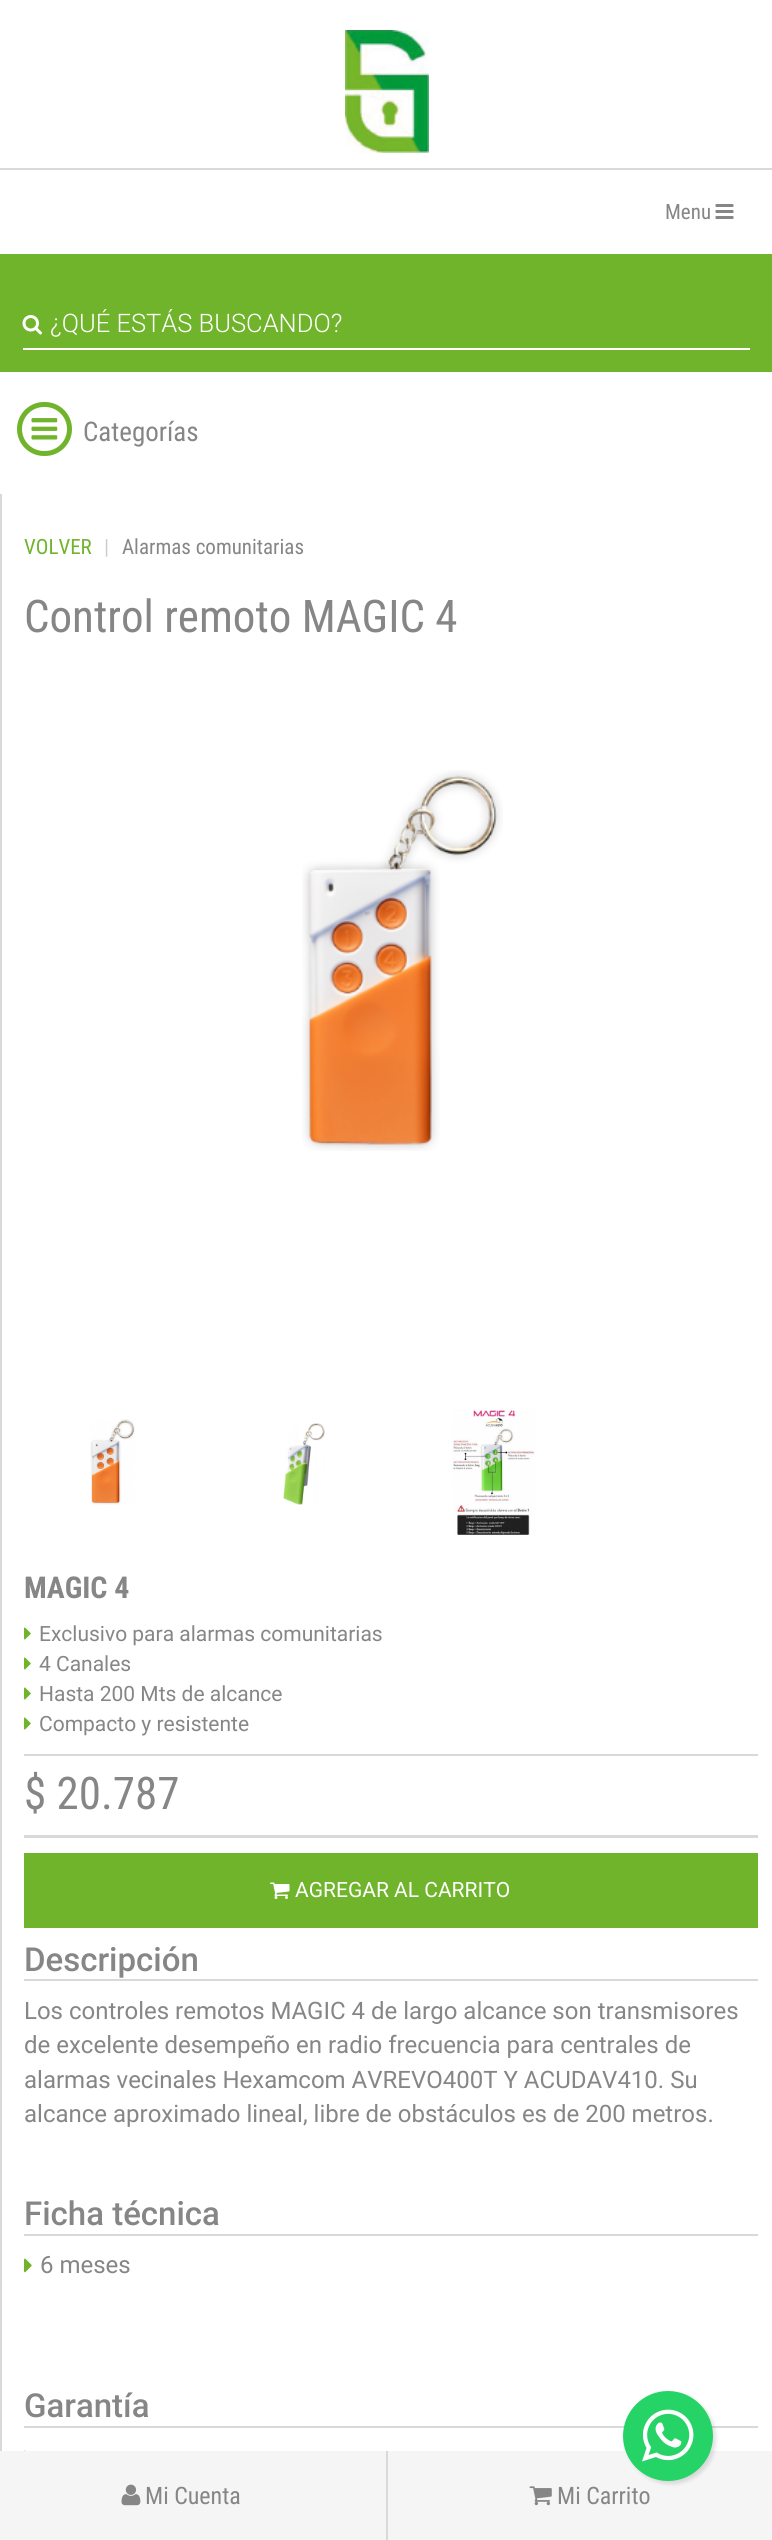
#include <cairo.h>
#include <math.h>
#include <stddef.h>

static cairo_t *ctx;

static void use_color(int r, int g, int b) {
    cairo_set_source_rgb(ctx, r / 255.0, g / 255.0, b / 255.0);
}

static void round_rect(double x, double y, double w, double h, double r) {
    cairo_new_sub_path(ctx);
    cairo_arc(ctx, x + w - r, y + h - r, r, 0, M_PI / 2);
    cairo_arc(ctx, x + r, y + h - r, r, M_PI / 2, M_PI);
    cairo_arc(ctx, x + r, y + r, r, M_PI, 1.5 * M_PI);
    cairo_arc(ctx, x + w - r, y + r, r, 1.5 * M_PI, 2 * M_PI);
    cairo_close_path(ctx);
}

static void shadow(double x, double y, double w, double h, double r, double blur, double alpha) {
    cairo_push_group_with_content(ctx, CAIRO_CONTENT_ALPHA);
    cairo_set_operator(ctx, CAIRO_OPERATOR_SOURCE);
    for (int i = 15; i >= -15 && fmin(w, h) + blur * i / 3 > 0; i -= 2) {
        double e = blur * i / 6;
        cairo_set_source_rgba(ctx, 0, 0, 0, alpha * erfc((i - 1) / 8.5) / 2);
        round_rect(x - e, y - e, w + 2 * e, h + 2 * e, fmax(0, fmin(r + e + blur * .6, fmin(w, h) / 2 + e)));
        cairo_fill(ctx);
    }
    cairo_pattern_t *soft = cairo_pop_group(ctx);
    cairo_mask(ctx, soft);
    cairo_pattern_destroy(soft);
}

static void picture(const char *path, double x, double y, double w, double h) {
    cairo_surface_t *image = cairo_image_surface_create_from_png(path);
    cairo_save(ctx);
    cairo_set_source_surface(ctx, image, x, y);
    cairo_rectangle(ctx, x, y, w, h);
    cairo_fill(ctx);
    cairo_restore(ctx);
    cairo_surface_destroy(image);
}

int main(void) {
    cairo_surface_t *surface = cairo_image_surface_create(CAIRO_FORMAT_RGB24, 772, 2540);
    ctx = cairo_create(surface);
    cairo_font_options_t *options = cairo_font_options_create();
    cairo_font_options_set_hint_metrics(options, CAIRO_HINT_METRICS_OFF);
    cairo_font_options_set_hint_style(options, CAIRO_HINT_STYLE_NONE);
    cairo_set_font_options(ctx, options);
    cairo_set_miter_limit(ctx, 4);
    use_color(255, 255, 255);
    cairo_paint(ctx);
    picture("img1.png", 345, 30, 84, 123);
    use_color(217, 217, 217);
    cairo_rectangle(ctx, 0, 168, 772, 2);
    cairo_fill(ctx);
    cairo_select_font_face(ctx, "Roboto Condensed", CAIRO_FONT_SLANT_NORMAL, CAIRO_FONT_WEIGHT_NORMAL);
    cairo_set_font_size(ctx, 21);
    use_color(134, 134, 134);
    cairo_move_to(ctx, 665, 219);
    cairo_show_text(ctx, "Menu");
    picture("img2.png", 715, 204, 19, 15);
    use_color(112, 180, 44);
    cairo_rectangle(ctx, 0, 254, 772, 118);
    cairo_fill(ctx);
    picture("img3.png", 22, 315, 20, 20);
    use_color(255, 255, 255);
    cairo_rectangle(ctx, 23, 348, 727, 2);
    cairo_fill(ctx);
    cairo_save(ctx);
    cairo_rectangle(ctx, 50, 309, 676, 30);
    cairo_clip(ctx);
    cairo_select_font_face(ctx, "Roboto Light", CAIRO_FONT_SLANT_NORMAL, CAIRO_FONT_WEIGHT_NORMAL);
    cairo_set_font_size(ctx, 25.5);
    cairo_move_to(ctx, 50, 332);
    cairo_show_text(ctx, "¿QUÉ ESTÁS BUSCANDO?");
    cairo_restore(ctx);
    round_rect(19.5, 404.5, 50, 49, 24.5);
    use_color(112, 180, 44);
    cairo_set_line_width(ctx, 5);
    cairo_stroke(ctx);
    picture("img4.png", 31, 418, 27, 22);
    cairo_set_font_size(ctx, 27);
    use_color(134, 134, 134);
    cairo_move_to(ctx, 83, 441);
    cairo_show_text(ctx, "Categorías");
    use_color(217, 217, 217);
    cairo_rectangle(ctx, 0, 494, 2, 1957);
    cairo_fill(ctx);
    cairo_set_font_size(ctx, 21);
    use_color(112, 180, 44);
    cairo_move_to(ctx, 24, 554);
    cairo_show_text(ctx, "VOLVER");
    use_color(204, 204, 204);
    cairo_move_to(ctx, 104, 554);
    cairo_show_text(ctx, "|");
    use_color(134, 134, 134);
    cairo_move_to(ctx, 122, 554);
    cairo_show_text(ctx, "Alarmas comunitarias");
    cairo_set_font_size(ctx, 45);
    cairo_move_to(ctx, 24, 632);
    cairo_show_text(ctx, "Control remoto MAGIC 4");
    picture("img5.png", 302, 770, 201, 381);
    picture("img6.png", 90, 1419, 45, 86);
    picture("img7.png", 283, 1423, 42, 82);
    picture("img8.png", 452, 1410, 83, 125);
    cairo_select_font_face(ctx, "Roboto Condensed", CAIRO_FONT_SLANT_NORMAL, CAIRO_FONT_WEIGHT_BOLD);
    cairo_set_font_size(ctx, 30);
    cairo_move_to(ctx, 24, 1598);
    cairo_show_text(ctx, "MAGIC 4");
    picture("img9.png", 24, 1627, 7, 13);
    cairo_select_font_face(ctx, "Roboto", CAIRO_FONT_SLANT_NORMAL, CAIRO_FONT_WEIGHT_NORMAL);
    cairo_set_font_size(ctx, 21);
    cairo_move_to(ctx, 39, 1641);
    cairo_show_text(ctx, "Exclusivo para alarmas comunitarias");
    picture("img9.png", 24, 1657, 7, 13);
    cairo_move_to(ctx, 39, 1671);
    cairo_show_text(ctx, "4 Canales");
    picture("img9.png", 24, 1687, 7, 13);
    cairo_move_to(ctx, 39, 1701);
    cairo_show_text(ctx, "Hasta 200 Mts de alcance");
    picture("img9.png", 24, 1717, 7, 13);
    cairo_move_to(ctx, 39, 1731);
    cairo_show_text(ctx, "Compacto y resistente");
    use_color(217, 217, 217);
    cairo_rectangle(ctx, 24, 1754, 734, 2);
    cairo_fill(ctx);
    cairo_rectangle(ctx, 24, 1835, 734, 3);
    cairo_fill(ctx);
    cairo_select_font_face(ctx, "Roboto Condensed", CAIRO_FONT_SLANT_NORMAL, CAIRO_FONT_WEIGHT_NORMAL);
    cairo_set_font_size(ctx, 45);
    use_color(134, 134, 134);
    cairo_move_to(ctx, 24, 1809);
    cairo_show_text(ctx, "$ 20.787");
    use_color(112, 180, 44);
    cairo_rectangle(ctx, 24, 1853, 734, 75);
    cairo_fill(ctx);
    picture("img10.png", 270, 1882, 20, 17);
    cairo_select_font_face(ctx, "Roboto", CAIRO_FONT_SLANT_NORMAL, CAIRO_FONT_WEIGHT_NORMAL);
    cairo_set_font_size(ctx, 21);
    use_color(255, 255, 255);
    cairo_move_to(ctx, 295, 1897);
    cairo_show_text(ctx, "AGREGAR AL CARRITO");
    use_color(217, 217, 217);
    cairo_rectangle(ctx, 24, 1979, 734, 2);
    cairo_fill(ctx);
    cairo_select_font_face(ctx, "Roboto Medium", CAIRO_FONT_SLANT_NORMAL, CAIRO_FONT_WEIGHT_NORMAL);
    cairo_set_font_size(ctx, 33);
    use_color(134, 134, 134);
    cairo_move_to(ctx, 24, 1971);
    cairo_show_text(ctx, "Descripción");
    cairo_select_font_face(ctx, "Roboto", CAIRO_FONT_SLANT_NORMAL, CAIRO_FONT_WEIGHT_NORMAL);
    cairo_set_font_size(ctx, 24);
    cairo_move_to(ctx, 24, 2019);
    cairo_show_text(ctx, "Los controles remotos MAGIC 4 de largo alcance son transmisores");
    cairo_move_to(ctx, 24, 2053);
    cairo_show_text(ctx, "de excelente desempeño en radio frecuencia para centrales de");
    cairo_move_to(ctx, 24, 2088);
    cairo_show_text(ctx, "alarmas vecinales Hexamcom AVREVO400T Y ACUDAV410. Su");
    cairo_move_to(ctx, 24, 2122);
    cairo_show_text(ctx, "alcance aproximado lineal, libre de obstáculos es de 200 metros.");
    use_color(217, 217, 217);
    cairo_rectangle(ctx, 24, 2234, 734, 2);
    cairo_fill(ctx);
    cairo_select_font_face(ctx, "Roboto Medium", CAIRO_FONT_SLANT_NORMAL, CAIRO_FONT_WEIGHT_NORMAL);
    cairo_set_font_size(ctx, 33);
    use_color(134, 134, 134);
    cairo_move_to(ctx, 24, 2225);
    cairo_show_text(ctx, "Ficha técnica");
    picture("img11.png", 24, 2258, 8, 15);
    cairo_select_font_face(ctx, "Roboto", CAIRO_FONT_SLANT_NORMAL, CAIRO_FONT_WEIGHT_NORMAL);
    cairo_set_font_size(ctx, 24);
    cairo_move_to(ctx, 40, 2273);
    cairo_show_text(ctx, "6 meses");
    use_color(217, 217, 217);
    cairo_rectangle(ctx, 24, 2426, 734, 2);
    cairo_fill(ctx);
    cairo_select_font_face(ctx, "Roboto Medium", CAIRO_FONT_SLANT_NORMAL, CAIRO_FONT_WEIGHT_NORMAL);
    cairo_set_font_size(ctx, 33);
    use_color(134, 134, 134);
    cairo_move_to(ctx, 24, 2417);
    cairo_show_text(ctx, "Garantía");
    picture("img12.png", 24, 2450, 2, 1);
    use_color(245, 245, 245);
    cairo_rectangle(ctx, 0, 2451, 772, 89);
    cairo_fill(ctx);
    use_color(0, 0, 0);
    shadow(626, 2394, 90, 90, 45, 2, 0.12);
    use_color(37, 211, 102);
    cairo_arc(ctx, 668, 2436, 45, 0, 2 * M_PI);
    cairo_fill(ctx);
    picture("img13.png", 642, 2409, 52, 53);
    use_color(218, 216, 216);
    cairo_rectangle(ctx, 386, 2451, 2, 89);
    cairo_fill(ctx);
    picture("img14.png", 121, 2484, 20, 22);
    cairo_select_font_face(ctx, "Roboto Condensed", CAIRO_FONT_SLANT_NORMAL, CAIRO_FONT_WEIGHT_NORMAL);
    cairo_set_font_size(ctx, 24);
    use_color(134, 134, 134);
    cairo_move_to(ctx, 145, 2504);
    cairo_show_text(ctx, "Mi Cuenta");
    picture("img15.png", 529, 2486, 23, 20);
    cairo_move_to(ctx, 557, 2504);
    cairo_show_text(ctx, "Mi Carrito");
    cairo_surface_write_to_png(surface, "result.png");
    cairo_font_options_destroy(options);
    cairo_destroy(ctx);
    cairo_surface_destroy(surface);
    return 0;
}
